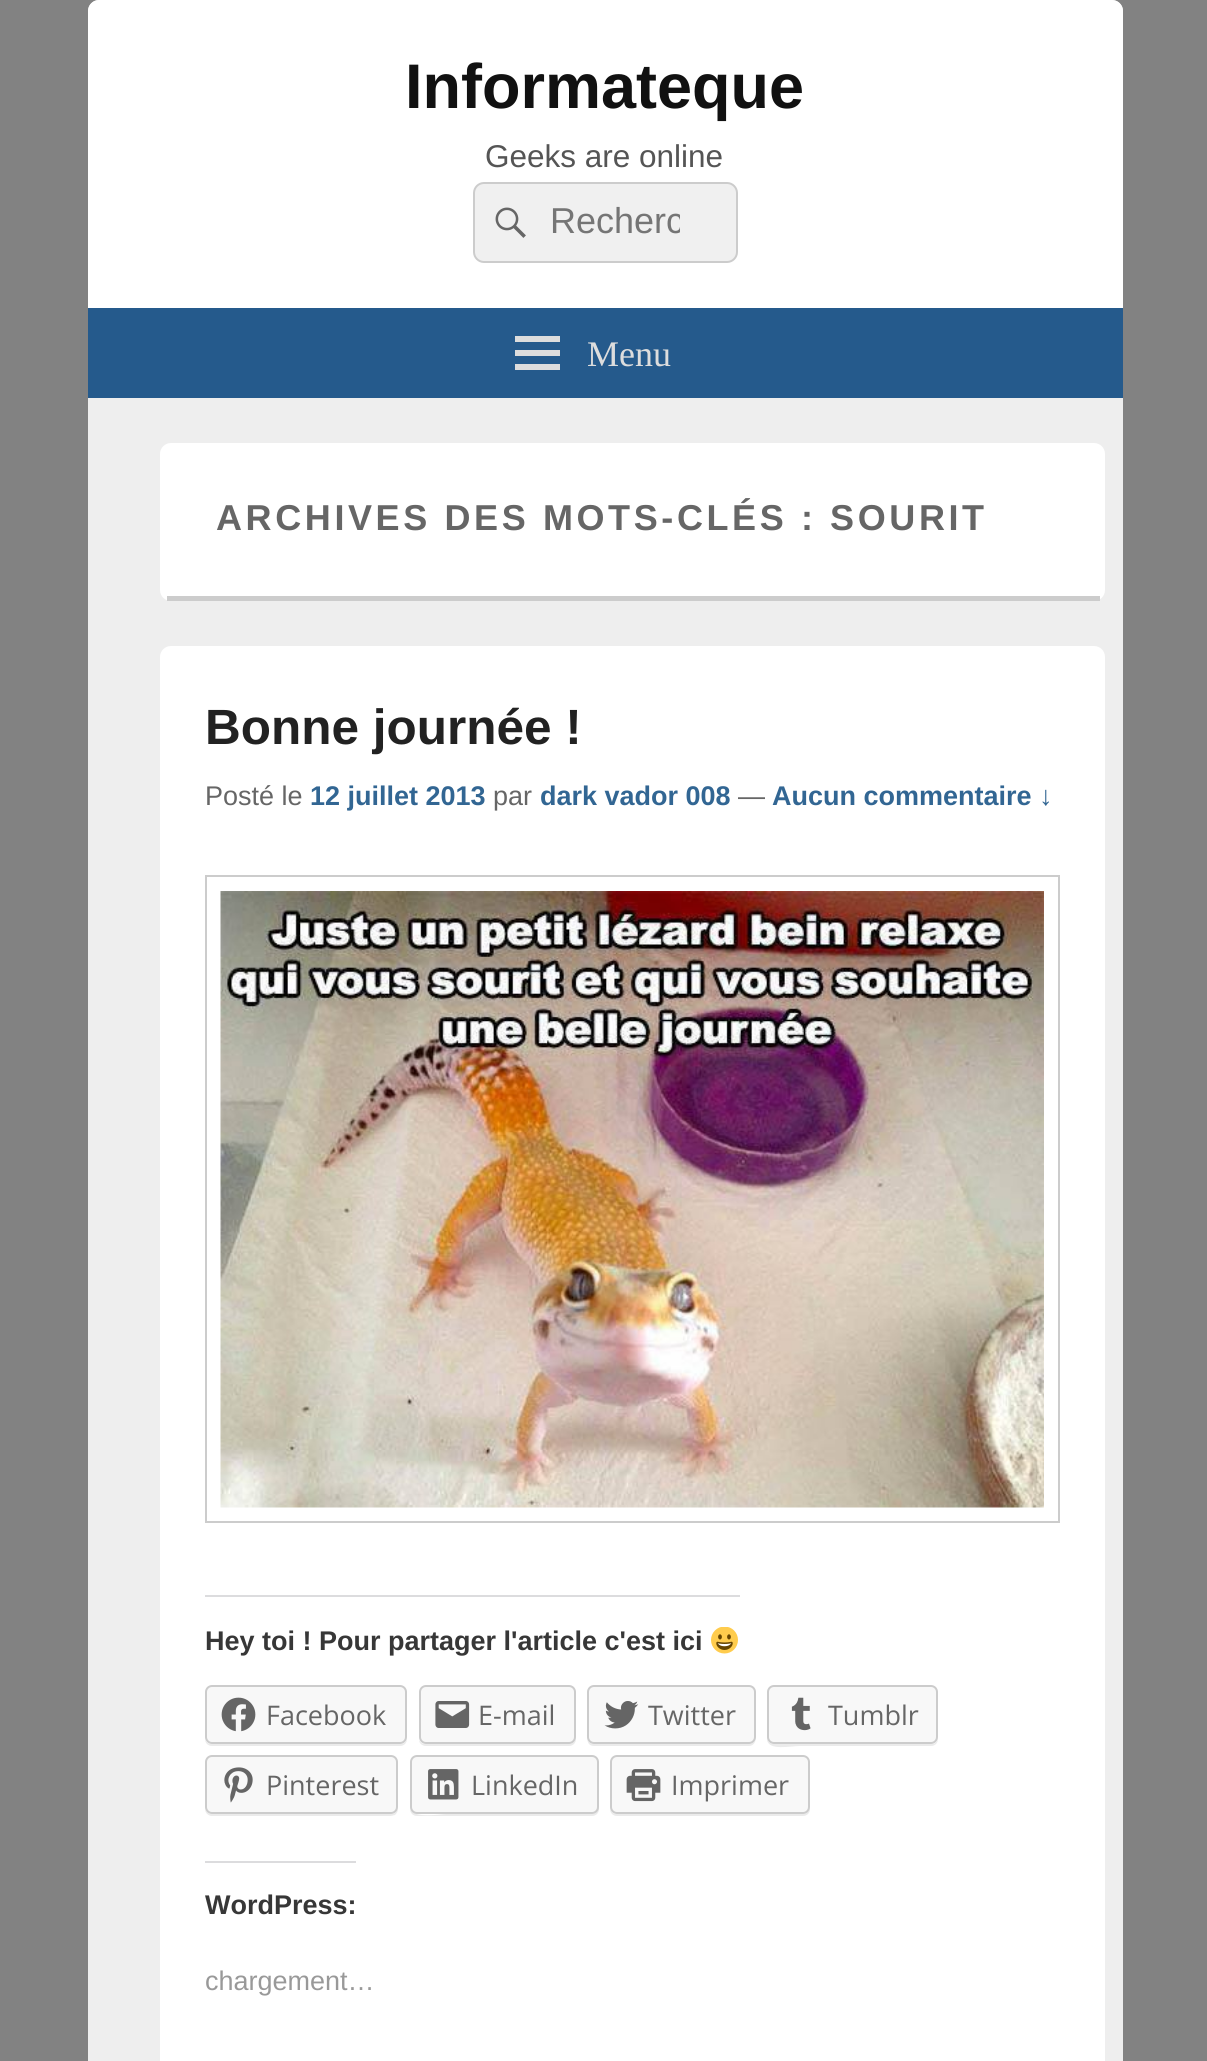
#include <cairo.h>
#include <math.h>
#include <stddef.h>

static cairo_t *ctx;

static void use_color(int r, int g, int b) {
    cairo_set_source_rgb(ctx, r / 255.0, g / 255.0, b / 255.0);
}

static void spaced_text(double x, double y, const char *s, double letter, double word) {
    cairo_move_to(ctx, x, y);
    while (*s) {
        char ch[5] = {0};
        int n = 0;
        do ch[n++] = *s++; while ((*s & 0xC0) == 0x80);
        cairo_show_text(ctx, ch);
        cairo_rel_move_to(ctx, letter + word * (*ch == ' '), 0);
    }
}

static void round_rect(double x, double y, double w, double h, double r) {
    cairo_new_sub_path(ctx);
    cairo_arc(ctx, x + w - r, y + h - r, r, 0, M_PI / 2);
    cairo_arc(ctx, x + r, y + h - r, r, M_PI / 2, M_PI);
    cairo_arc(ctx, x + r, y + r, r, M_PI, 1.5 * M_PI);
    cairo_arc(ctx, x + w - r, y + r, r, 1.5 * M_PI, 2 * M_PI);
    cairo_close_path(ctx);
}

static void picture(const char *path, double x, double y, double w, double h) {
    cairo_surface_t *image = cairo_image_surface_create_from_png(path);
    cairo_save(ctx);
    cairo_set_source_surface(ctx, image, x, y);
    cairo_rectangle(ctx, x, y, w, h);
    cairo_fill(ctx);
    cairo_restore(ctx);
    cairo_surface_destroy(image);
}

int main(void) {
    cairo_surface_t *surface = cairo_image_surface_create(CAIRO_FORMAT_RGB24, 1207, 2061);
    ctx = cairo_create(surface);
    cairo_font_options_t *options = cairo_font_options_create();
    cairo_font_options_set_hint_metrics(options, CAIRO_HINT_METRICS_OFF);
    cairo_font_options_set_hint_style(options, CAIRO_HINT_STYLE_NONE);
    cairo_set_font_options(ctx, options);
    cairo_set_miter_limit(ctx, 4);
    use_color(130, 130, 130);
    cairo_paint(ctx);
    use_color(238, 238, 238);
    round_rect(88, 0, 1035, 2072, 11);
    cairo_fill(ctx);
    use_color(255, 255, 255);
    cairo_new_path(ctx);
    cairo_move_to(ctx, 99, 0);
    cairo_line_to(ctx, 1112, 0);
    cairo_curve_to(ctx, 1118, 0, 1123, 5, 1123, 11);
    cairo_line_to(ctx, 1123, 398);
    cairo_line_to(ctx, 88, 398);
    cairo_line_to(ctx, 88, 11);
    cairo_curve_to(ctx, 88, 5, 93, 0, 99, 0);
    cairo_close_path(ctx);
    cairo_fill(ctx);
    cairo_select_font_face(ctx, "Liberation Sans", CAIRO_FONT_SLANT_NORMAL, CAIRO_FONT_WEIGHT_BOLD);
    cairo_set_font_size(ctx, 63);
    use_color(17, 17, 17);
    cairo_move_to(ctx, 405, 108);
    cairo_show_text(ctx, "Informateque");
    cairo_select_font_face(ctx, "Liberation Sans", CAIRO_FONT_SLANT_NORMAL, CAIRO_FONT_WEIGHT_NORMAL);
    cairo_set_font_size(ctx, 31.5);
    use_color(85, 85, 85);
    cairo_move_to(ctx, 485, 167);
    cairo_show_text(ctx, "Geeks are online");
    use_color(240, 240, 240);
    round_rect(474, 183, 263, 79, 10);
    cairo_fill_preserve(ctx);
    use_color(204, 204, 204);
    cairo_stroke(ctx);
    picture("img1.png", 495, 207, 31, 31);
    cairo_save(ctx);
    cairo_rectangle(ctx, 551, 203, 129, 40);
    cairo_clip(ctx);
    cairo_set_font_size(ctx, 36);
    use_color(117, 117, 117);
    cairo_move_to(ctx, 550, 233);
    cairo_show_text(ctx, "Recherc");
    cairo_restore(ctx);
    use_color(37, 90, 140);
    cairo_rectangle(ctx, 88, 308, 1035, 90);
    cairo_fill(ctx);
    use_color(221, 221, 221);
    cairo_new_path(ctx);
    cairo_move_to(ctx, 515, 370);
    cairo_line_to(ctx, 515, 364);
    cairo_line_to(ctx, 560, 364);
    cairo_line_to(ctx, 560, 370);
    cairo_close_path(ctx);
    cairo_move_to(ctx, 515, 336);
    cairo_line_to(ctx, 560, 336);
    cairo_line_to(ctx, 560, 342);
    cairo_line_to(ctx, 515, 342);
    cairo_close_path(ctx);
    cairo_move_to(ctx, 515, 356);
    cairo_line_to(ctx, 515, 350);
    cairo_line_to(ctx, 560, 350);
    cairo_line_to(ctx, 560, 356);
    cairo_close_path(ctx);
    cairo_fill(ctx);
    cairo_select_font_face(ctx, "Liberation Serif", CAIRO_FONT_SLANT_NORMAL, CAIRO_FONT_WEIGHT_NORMAL);
    cairo_set_font_size(ctx, 36);
    cairo_move_to(ctx, 587, 366);
    cairo_show_text(ctx, "Menu");
    use_color(255, 255, 255);
    round_rect(160, 443, 945, 158, 11);
    cairo_fill(ctx);
    use_color(204, 204, 204);
    cairo_rectangle(ctx, 167, 596, 933, 5);
    cairo_fill(ctx);
    cairo_select_font_face(ctx, "Liberation Sans", CAIRO_FONT_SLANT_NORMAL, CAIRO_FONT_WEIGHT_BOLD);
    use_color(102, 102, 102);
    spaced_text(216, 530, "ARCHIVES DES MOTS-CLÉS : SOURIT", 3.6, 0);
    use_color(255, 255, 255);
    round_rect(160, 646, 945, 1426, 11);
    cairo_fill(ctx);
    cairo_set_font_size(ctx, 49.5);
    use_color(34, 34, 34);
    cairo_move_to(ctx, 205, 744);
    cairo_show_text(ctx, "Bonne journée !");
    cairo_select_font_face(ctx, "Liberation Sans", CAIRO_FONT_SLANT_NORMAL, CAIRO_FONT_WEIGHT_NORMAL);
    cairo_set_font_size(ctx, 27);
    use_color(102, 102, 102);
    cairo_move_to(ctx, 205, 805);
    cairo_show_text(ctx, "Posté le");
    cairo_select_font_face(ctx, "Liberation Sans", CAIRO_FONT_SLANT_NORMAL, CAIRO_FONT_WEIGHT_BOLD);
    use_color(50, 102, 147);
    cairo_move_to(ctx, 310, 805);
    cairo_show_text(ctx, "12 juillet 2013");
    cairo_select_font_face(ctx, "Liberation Sans", CAIRO_FONT_SLANT_NORMAL, CAIRO_FONT_WEIGHT_NORMAL);
    use_color(102, 102, 102);
    cairo_move_to(ctx, 493, 805);
    cairo_show_text(ctx, "par");
    cairo_select_font_face(ctx, "Liberation Sans", CAIRO_FONT_SLANT_NORMAL, CAIRO_FONT_WEIGHT_BOLD);
    use_color(50, 102, 147);
    cairo_move_to(ctx, 540, 805);
    cairo_show_text(ctx, "dark vador 008");
    cairo_select_font_face(ctx, "Liberation Sans", CAIRO_FONT_SLANT_NORMAL, CAIRO_FONT_WEIGHT_NORMAL);
    use_color(102, 102, 102);
    cairo_move_to(ctx, 738, 805);
    cairo_show_text(ctx, "—");
    cairo_select_font_face(ctx, "Liberation Sans", CAIRO_FONT_SLANT_NORMAL, CAIRO_FONT_WEIGHT_BOLD);
    use_color(50, 102, 147);
    cairo_move_to(ctx, 772, 805);
    cairo_show_text(ctx, "Aucun commentaire ↓");
    cairo_rectangle(ctx, 206, 876, 853, 646);
    use_color(204, 204, 204);
    cairo_stroke(ctx);
    picture("img2.png", 220, 891, 824, 617);
    use_color(220, 220, 222);
    cairo_rectangle(ctx, 205, 1595, 535, 2);
    cairo_fill(ctx);
    use_color(55, 55, 55);
    cairo_move_to(ctx, 205, 1650);
    cairo_show_text(ctx, "Hey toi ! Pour partager l'article c'est ici");
    picture("img3.png", 711, 1627, 27, 27);
    use_color(235, 235, 235);
    cairo_new_path(ctx);
    cairo_move_to(ctx, 205, 1739);
    cairo_curve_to(ctx, 205, 1743, 208, 1746, 212, 1746);
    cairo_line_to(ctx, 400, 1746);
    cairo_curve_to(ctx, 404, 1746, 407, 1743, 407, 1739);
    cairo_curve_to(ctx, 406, 1742, 404, 1744, 400, 1744);
    cairo_line_to(ctx, 212, 1744);
    cairo_curve_to(ctx, 208, 1744, 206, 1742, 205, 1739);
    cairo_close_path(ctx);
    cairo_fill(ctx);
    use_color(248, 248, 248);
    round_rect(206, 1686, 200, 57, 6);
    cairo_fill_preserve(ctx);
    use_color(204, 204, 204);
    cairo_stroke(ctx);
    picture("img4.png", 221, 1697, 35, 35);
    cairo_select_font_face(ctx, "Open Sans", CAIRO_FONT_SLANT_NORMAL, CAIRO_FONT_WEIGHT_NORMAL);
    use_color(102, 102, 102);
    cairo_move_to(ctx, 266, 1725);
    cairo_show_text(ctx, "Facebook");
    use_color(235, 235, 235);
    cairo_new_path(ctx);
    cairo_move_to(ctx, 419, 1740);
    cairo_curve_to(ctx, 419, 1743, 422, 1746, 426, 1746);
    cairo_line_to(ctx, 569, 1746);
    cairo_curve_to(ctx, 573, 1746, 576, 1743, 576, 1739);
    cairo_line_to(ctx, 576, 1737);
    cairo_curve_to(ctx, 576, 1741, 573, 1744, 569, 1744);
    cairo_line_to(ctx, 425, 1744);
    cairo_curve_to(ctx, 422, 1744, 420, 1742, 419, 1740);
    cairo_close_path(ctx);
    cairo_fill(ctx);
    use_color(248, 248, 248);
    round_rect(420, 1686, 155, 57, 6);
    cairo_fill_preserve(ctx);
    use_color(204, 204, 204);
    cairo_stroke(ctx);
    picture("img5.png", 435, 1701, 35, 27);
    use_color(102, 102, 102);
    cairo_move_to(ctx, 478, 1725);
    cairo_show_text(ctx, "E-mail");
    use_color(235, 235, 235);
    cairo_new_path(ctx);
    cairo_move_to(ctx, 587, 1693);
    cairo_line_to(ctx, 587, 1732);
    cairo_curve_to(ctx, 587, 1737, 586, 1746, 594, 1746);
    cairo_line_to(ctx, 749, 1746);
    cairo_curve_to(ctx, 754, 1746, 756, 1741, 756, 1737);
    cairo_curve_to(ctx, 756, 1741, 753, 1744, 749, 1744);
    cairo_line_to(ctx, 594, 1744);
    cairo_curve_to(ctx, 590, 1744, 587, 1741, 587, 1737);
    cairo_close_path(ctx);
    cairo_fill(ctx);
    use_color(248, 248, 248);
    round_rect(588, 1686, 167, 57, 6);
    cairo_fill_preserve(ctx);
    use_color(204, 204, 204);
    cairo_stroke(ctx);
    picture("img6.png", 604, 1701, 35, 28);
    use_color(102, 102, 102);
    cairo_move_to(ctx, 648, 1725);
    cairo_show_text(ctx, "Twitter");
    use_color(235, 235, 235);
    cairo_new_path(ctx);
    cairo_move_to(ctx, 767, 1693);
    cairo_line_to(ctx, 767, 1740);
    cairo_curve_to(ctx, 769, 1751, 790, 1746, 800, 1746);
    cairo_line_to(ctx, 931, 1746);
    cairo_curve_to(ctx, 935, 1746, 938, 1743, 938, 1739);
    cairo_curve_to(ctx, 937, 1742, 935, 1744, 932, 1744);
    cairo_line_to(ctx, 774, 1744);
    cairo_curve_to(ctx, 770, 1744, 767, 1741, 767, 1737);
    cairo_close_path(ctx);
    cairo_fill(ctx);
    use_color(248, 248, 248);
    round_rect(768, 1686, 169, 57, 6);
    cairo_fill_preserve(ctx);
    use_color(204, 204, 204);
    cairo_stroke(ctx);
    picture("img7.png", 791, 1697, 20, 34);
    use_color(102, 102, 102);
    cairo_move_to(ctx, 828, 1725);
    cairo_show_text(ctx, "Tumblr");
    use_color(235, 235, 235);
    cairo_new_path(ctx);
    cairo_move_to(ctx, 205, 1809);
    cairo_curve_to(ctx, 205, 1812, 207, 1815, 211, 1816);
    cairo_line_to(ctx, 391, 1816);
    cairo_line_to(ctx, 395, 1815);
    cairo_curve_to(ctx, 397, 1813, 398, 1811, 398, 1809);
    cairo_curve_to(ctx, 397, 1811, 395, 1814, 392, 1814);
    cairo_line_to(ctx, 212, 1814);
    cairo_curve_to(ctx, 208, 1814, 206, 1811, 205, 1809);
    cairo_close_path(ctx);
    cairo_fill(ctx);
    use_color(248, 248, 248);
    round_rect(206, 1756, 191, 57, 6);
    cairo_fill_preserve(ctx);
    use_color(204, 204, 204);
    cairo_stroke(ctx);
    picture("img8.png", 224, 1767, 29, 36);
    use_color(102, 102, 102);
    cairo_move_to(ctx, 266, 1795);
    cairo_show_text(ctx, "Pinterest");
    use_color(235, 235, 235);
    cairo_new_path(ctx);
    cairo_move_to(ctx, 410, 1809);
    cairo_curve_to(ctx, 410, 1813, 413, 1816, 417, 1816);
    cairo_line_to(ctx, 592, 1816);
    cairo_curve_to(ctx, 596, 1816, 599, 1813, 599, 1809);
    cairo_line_to(ctx, 599, 1764);
    cairo_line_to(ctx, 598, 1761);
    cairo_line_to(ctx, 598, 1799);
    cairo_curve_to(ctx, 598, 1804, 600, 1813, 592, 1814);
    cairo_line_to(ctx, 446, 1814);
    cairo_curve_to(ctx, 441, 1814, 414, 1819, 410, 1809);
    cairo_close_path(ctx);
    cairo_fill(ctx);
    use_color(248, 248, 248);
    round_rect(411, 1756, 187, 57, 6);
    cairo_fill_preserve(ctx);
    use_color(204, 204, 204);
    cairo_stroke(ctx);
    picture("img9.png", 428, 1769, 31, 31);
    use_color(102, 102, 102);
    cairo_move_to(ctx, 471, 1795);
    cairo_show_text(ctx, "LinkedIn");
    use_color(235, 235, 235);
    cairo_new_path(ctx);
    cairo_move_to(ctx, 610, 1809);
    cairo_curve_to(ctx, 610, 1813, 613, 1816, 617, 1816);
    cairo_line_to(ctx, 803, 1816);
    cairo_curve_to(ctx, 807, 1816, 810, 1813, 810, 1809);
    cairo_line_to(ctx, 810, 1807);
    cairo_curve_to(ctx, 810, 1810, 807, 1814, 803, 1814);
    cairo_line_to(ctx, 616, 1814);
    cairo_curve_to(ctx, 613, 1814, 611, 1811, 610, 1809);
    cairo_close_path(ctx);
    cairo_fill(ctx);
    use_color(248, 248, 248);
    round_rect(611, 1756, 198, 57, 6);
    cairo_fill_preserve(ctx);
    use_color(204, 204, 204);
    cairo_stroke(ctx);
    picture("img10.png", 626, 1769, 35, 33);
    use_color(102, 102, 102);
    cairo_move_to(ctx, 671, 1795);
    cairo_show_text(ctx, "Imprimer");
    use_color(220, 220, 222);
    cairo_rectangle(ctx, 205, 1861, 151, 2);
    cairo_fill(ctx);
    cairo_select_font_face(ctx, "Liberation Sans", CAIRO_FONT_SLANT_NORMAL, CAIRO_FONT_WEIGHT_BOLD);
    use_color(55, 55, 55);
    cairo_move_to(ctx, 205, 1914);
    cairo_show_text(ctx, "WordPress:");
    cairo_select_font_face(ctx, "Liberation Sans", CAIRO_FONT_SLANT_NORMAL, CAIRO_FONT_WEIGHT_NORMAL);
    use_color(153, 153, 153);
    cairo_move_to(ctx, 205, 1990);
    cairo_show_text(ctx, "chargement…");
    cairo_surface_write_to_png(surface, "result.png");
    cairo_font_options_destroy(options);
    cairo_destroy(ctx);
    cairo_surface_destroy(surface);
    return 0;
}
